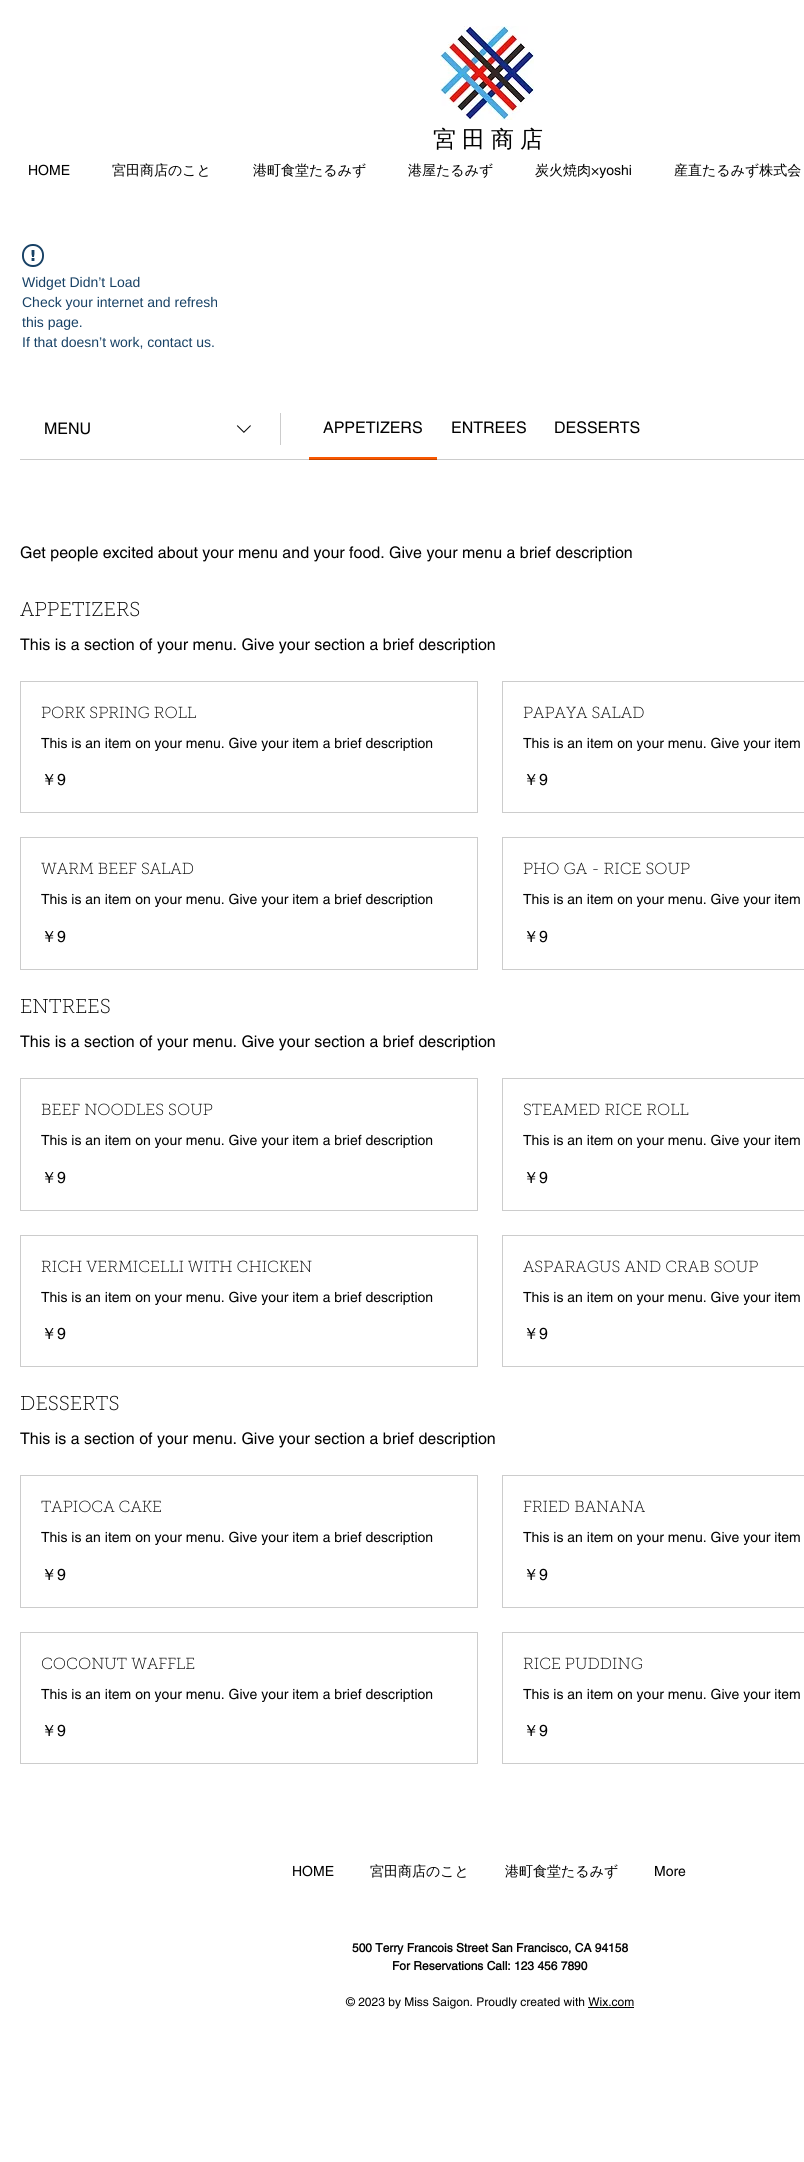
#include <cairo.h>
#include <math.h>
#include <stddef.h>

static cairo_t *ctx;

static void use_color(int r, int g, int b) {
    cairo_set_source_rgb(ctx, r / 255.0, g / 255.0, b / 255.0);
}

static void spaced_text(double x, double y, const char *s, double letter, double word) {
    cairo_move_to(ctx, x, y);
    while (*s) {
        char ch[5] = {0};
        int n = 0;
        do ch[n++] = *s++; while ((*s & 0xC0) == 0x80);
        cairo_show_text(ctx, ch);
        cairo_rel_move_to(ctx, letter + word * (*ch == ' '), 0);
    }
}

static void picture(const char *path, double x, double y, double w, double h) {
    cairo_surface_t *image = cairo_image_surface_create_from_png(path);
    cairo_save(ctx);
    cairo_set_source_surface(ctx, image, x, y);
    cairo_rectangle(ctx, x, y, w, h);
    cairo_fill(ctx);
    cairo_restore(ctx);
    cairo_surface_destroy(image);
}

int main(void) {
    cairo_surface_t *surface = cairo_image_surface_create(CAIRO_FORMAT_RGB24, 804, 2162);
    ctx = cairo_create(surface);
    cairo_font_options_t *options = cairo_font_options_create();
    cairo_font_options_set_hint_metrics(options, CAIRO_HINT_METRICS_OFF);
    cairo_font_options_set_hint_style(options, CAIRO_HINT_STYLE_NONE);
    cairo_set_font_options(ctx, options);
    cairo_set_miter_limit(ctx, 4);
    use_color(255, 255, 255);
    cairo_paint(ctx);
    picture("img1.png", 440, 26, 94, 94);
    cairo_select_font_face(ctx, "WenQuanYi Zen Hei Medium", CAIRO_FONT_SLANT_NORMAL, CAIRO_FONT_WEIGHT_NORMAL);
    cairo_set_font_size(ctx, 23);
    use_color(0, 0, 0);
    spaced_text(433, 147, "宮田商店", 6, 0);
    cairo_select_font_face(ctx, "helvetica", CAIRO_FONT_SLANT_NORMAL, CAIRO_FONT_WEIGHT_NORMAL);
    cairo_set_font_size(ctx, 14);
    cairo_move_to(ctx, 28, 175);
    cairo_show_text(ctx, "HOME");
    cairo_select_font_face(ctx, "WenQuanYi Zen Hei Medium", CAIRO_FONT_SLANT_NORMAL, CAIRO_FONT_WEIGHT_NORMAL);
    cairo_move_to(ctx, 112, 175);
    cairo_show_text(ctx, "宮田商店のこと");
    cairo_move_to(ctx, 253, 175);
    cairo_show_text(ctx, "港町食堂たるみず");
    cairo_move_to(ctx, 408, 175);
    cairo_show_text(ctx, "港屋たるみず");
    cairo_move_to(ctx, 535, 175);
    cairo_show_text(ctx, "炭火焼肉");
    cairo_select_font_face(ctx, "helvetica", CAIRO_FONT_SLANT_NORMAL, CAIRO_FONT_WEIGHT_NORMAL);
    cairo_move_to(ctx, 591, 175);
    cairo_show_text(ctx, "×yoshi");
    cairo_select_font_face(ctx, "WenQuanYi Zen Hei Medium", CAIRO_FONT_SLANT_NORMAL, CAIRO_FONT_WEIGHT_NORMAL);
    cairo_move_to(ctx, 674, 175);
    cairo_show_text(ctx, "産直たるみず株式会");
    picture("img2.png", 22, 244, 22, 23);
    cairo_select_font_face(ctx, "Liberation Sans", CAIRO_FONT_SLANT_NORMAL, CAIRO_FONT_WEIGHT_NORMAL);
    use_color(23, 65, 101);
    cairo_move_to(ctx, 22, 287);
    cairo_show_text(ctx, "Widget Didn’t Load");
    cairo_move_to(ctx, 22, 307);
    cairo_show_text(ctx, "Check your internet and refresh");
    cairo_move_to(ctx, 22, 327);
    cairo_show_text(ctx, "this page.");
    cairo_move_to(ctx, 22, 347);
    cairo_show_text(ctx, "If that doesn’t work, contact us.");
    use_color(204, 204, 204);
    cairo_rectangle(ctx, 20, 459, 784, 1);
    cairo_fill(ctx);
    cairo_select_font_face(ctx, "helvetica", CAIRO_FONT_SLANT_NORMAL, CAIRO_FONT_WEIGHT_NORMAL);
    cairo_set_font_size(ctx, 16);
    use_color(0, 0, 0);
    cairo_move_to(ctx, 44, 434);
    cairo_show_text(ctx, "MENU");
    picture("img3.png", 236, 425, 15, 8);
    use_color(204, 204, 204);
    cairo_rectangle(ctx, 280, 413, 1, 32);
    cairo_fill(ctx);
    use_color(249, 87, 0);
    cairo_rectangle(ctx, 309, 457, 128, 2);
    cairo_fill(ctx);
    use_color(199, 70, 0);
    cairo_rectangle(ctx, 309, 459, 128, 1);
    cairo_fill(ctx);
    use_color(0, 0, 0);
    cairo_move_to(ctx, 323, 433);
    cairo_show_text(ctx, "APPETIZERS");
    cairo_move_to(ctx, 451, 433);
    cairo_show_text(ctx, "ENTREES");
    cairo_move_to(ctx, 554, 433);
    cairo_show_text(ctx, "DESSERTS");
    cairo_move_to(ctx, 20, 558);
    cairo_show_text(ctx, "Get people excited about your menu and your food. Give your menu a brief description");
    cairo_select_font_face(ctx, "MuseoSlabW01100 Thin", CAIRO_FONT_SLANT_NORMAL, CAIRO_FONT_WEIGHT_NORMAL);
    cairo_set_font_size(ctx, 20);
    cairo_move_to(ctx, 20, 616);
    cairo_show_text(ctx, "APPETIZERS");
    cairo_select_font_face(ctx, "helvetica", CAIRO_FONT_SLANT_NORMAL, CAIRO_FONT_WEIGHT_NORMAL);
    cairo_set_font_size(ctx, 16);
    cairo_move_to(ctx, 20, 650);
    cairo_show_text(ctx, "This is a section of your menu. Give your section a brief description");
    cairo_rectangle(ctx, 20.5, 681.5, 457, 131);
    use_color(204, 204, 204);
    cairo_set_line_width(ctx, 1);
    cairo_stroke(ctx);
    cairo_select_font_face(ctx, "MuseoSlabW01100 Thin", CAIRO_FONT_SLANT_NORMAL, CAIRO_FONT_WEIGHT_NORMAL);
    use_color(0, 0, 0);
    cairo_move_to(ctx, 41, 718);
    cairo_show_text(ctx, "PORK SPRING ROLL");
    cairo_select_font_face(ctx, "helvetica", CAIRO_FONT_SLANT_NORMAL, CAIRO_FONT_WEIGHT_NORMAL);
    cairo_set_font_size(ctx, 14);
    cairo_move_to(ctx, 41, 748);
    cairo_show_text(ctx, "This is an item on your menu. Give your item a brief description");
    cairo_select_font_face(ctx, "WenQuanYi Zen Hei Medium", CAIRO_FONT_SLANT_NORMAL, CAIRO_FONT_WEIGHT_NORMAL);
    cairo_set_font_size(ctx, 16);
    cairo_move_to(ctx, 41, 785);
    cairo_show_text(ctx, "￥");
    cairo_select_font_face(ctx, "helvetica", CAIRO_FONT_SLANT_NORMAL, CAIRO_FONT_WEIGHT_NORMAL);
    cairo_move_to(ctx, 57, 785);
    cairo_show_text(ctx, "9");
    cairo_rectangle(ctx, 502.5, 681.5, 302, 131);
    use_color(204, 204, 204);
    cairo_stroke(ctx);
    cairo_select_font_face(ctx, "MuseoSlabW01100 Thin", CAIRO_FONT_SLANT_NORMAL, CAIRO_FONT_WEIGHT_NORMAL);
    use_color(0, 0, 0);
    cairo_move_to(ctx, 523, 718);
    cairo_show_text(ctx, "PAPAYA SALAD");
    cairo_select_font_face(ctx, "helvetica", CAIRO_FONT_SLANT_NORMAL, CAIRO_FONT_WEIGHT_NORMAL);
    cairo_set_font_size(ctx, 14);
    cairo_move_to(ctx, 523, 748);
    cairo_show_text(ctx, "This is an item on your menu. Give your item");
    cairo_select_font_face(ctx, "WenQuanYi Zen Hei Medium", CAIRO_FONT_SLANT_NORMAL, CAIRO_FONT_WEIGHT_NORMAL);
    cairo_set_font_size(ctx, 16);
    cairo_move_to(ctx, 523, 785);
    cairo_show_text(ctx, "￥");
    cairo_select_font_face(ctx, "helvetica", CAIRO_FONT_SLANT_NORMAL, CAIRO_FONT_WEIGHT_NORMAL);
    cairo_move_to(ctx, 539, 785);
    cairo_show_text(ctx, "9");
    cairo_rectangle(ctx, 20.5, 837.5, 457, 132);
    use_color(204, 204, 204);
    cairo_stroke(ctx);
    cairo_select_font_face(ctx, "MuseoSlabW01100 Thin", CAIRO_FONT_SLANT_NORMAL, CAIRO_FONT_WEIGHT_NORMAL);
    use_color(0, 0, 0);
    cairo_move_to(ctx, 41, 874);
    cairo_show_text(ctx, "WARM BEEF SALAD");
    cairo_select_font_face(ctx, "helvetica", CAIRO_FONT_SLANT_NORMAL, CAIRO_FONT_WEIGHT_NORMAL);
    cairo_set_font_size(ctx, 14);
    cairo_move_to(ctx, 41, 904);
    cairo_show_text(ctx, "This is an item on your menu. Give your item a brief description");
    cairo_select_font_face(ctx, "WenQuanYi Zen Hei Medium", CAIRO_FONT_SLANT_NORMAL, CAIRO_FONT_WEIGHT_NORMAL);
    cairo_set_font_size(ctx, 16);
    cairo_move_to(ctx, 41, 942);
    cairo_show_text(ctx, "￥");
    cairo_select_font_face(ctx, "helvetica", CAIRO_FONT_SLANT_NORMAL, CAIRO_FONT_WEIGHT_NORMAL);
    cairo_move_to(ctx, 57, 942);
    cairo_show_text(ctx, "9");
    cairo_rectangle(ctx, 502.5, 837.5, 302, 132);
    use_color(204, 204, 204);
    cairo_stroke(ctx);
    cairo_select_font_face(ctx, "MuseoSlabW01100 Thin", CAIRO_FONT_SLANT_NORMAL, CAIRO_FONT_WEIGHT_NORMAL);
    use_color(0, 0, 0);
    cairo_move_to(ctx, 523, 874);
    cairo_show_text(ctx, "PHO GA - RICE SOUP");
    cairo_select_font_face(ctx, "helvetica", CAIRO_FONT_SLANT_NORMAL, CAIRO_FONT_WEIGHT_NORMAL);
    cairo_set_font_size(ctx, 14);
    cairo_move_to(ctx, 523, 904);
    cairo_show_text(ctx, "This is an item on your menu. Give your item");
    cairo_select_font_face(ctx, "WenQuanYi Zen Hei Medium", CAIRO_FONT_SLANT_NORMAL, CAIRO_FONT_WEIGHT_NORMAL);
    cairo_set_font_size(ctx, 16);
    cairo_move_to(ctx, 523, 942);
    cairo_show_text(ctx, "￥");
    cairo_select_font_face(ctx, "helvetica", CAIRO_FONT_SLANT_NORMAL, CAIRO_FONT_WEIGHT_NORMAL);
    cairo_move_to(ctx, 539, 942);
    cairo_show_text(ctx, "9");
    cairo_select_font_face(ctx, "MuseoSlabW01100 Thin", CAIRO_FONT_SLANT_NORMAL, CAIRO_FONT_WEIGHT_NORMAL);
    cairo_set_font_size(ctx, 20);
    cairo_move_to(ctx, 20, 1013);
    cairo_show_text(ctx, "ENTREES");
    cairo_select_font_face(ctx, "helvetica", CAIRO_FONT_SLANT_NORMAL, CAIRO_FONT_WEIGHT_NORMAL);
    cairo_set_font_size(ctx, 16);
    cairo_move_to(ctx, 20, 1047);
    cairo_show_text(ctx, "This is a section of your menu. Give your section a brief description");
    cairo_rectangle(ctx, 20.5, 1078.5, 457, 132);
    use_color(204, 204, 204);
    cairo_stroke(ctx);
    cairo_select_font_face(ctx, "MuseoSlabW01100 Thin", CAIRO_FONT_SLANT_NORMAL, CAIRO_FONT_WEIGHT_NORMAL);
    use_color(0, 0, 0);
    cairo_move_to(ctx, 41, 1115);
    cairo_show_text(ctx, "BEEF NOODLES SOUP");
    cairo_select_font_face(ctx, "helvetica", CAIRO_FONT_SLANT_NORMAL, CAIRO_FONT_WEIGHT_NORMAL);
    cairo_set_font_size(ctx, 14);
    cairo_move_to(ctx, 41, 1145);
    cairo_show_text(ctx, "This is an item on your menu. Give your item a brief description");
    cairo_select_font_face(ctx, "WenQuanYi Zen Hei Medium", CAIRO_FONT_SLANT_NORMAL, CAIRO_FONT_WEIGHT_NORMAL);
    cairo_set_font_size(ctx, 16);
    cairo_move_to(ctx, 41, 1183);
    cairo_show_text(ctx, "￥");
    cairo_select_font_face(ctx, "helvetica", CAIRO_FONT_SLANT_NORMAL, CAIRO_FONT_WEIGHT_NORMAL);
    cairo_move_to(ctx, 57, 1183);
    cairo_show_text(ctx, "9");
    cairo_rectangle(ctx, 502.5, 1078.5, 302, 132);
    use_color(204, 204, 204);
    cairo_stroke(ctx);
    cairo_select_font_face(ctx, "MuseoSlabW01100 Thin", CAIRO_FONT_SLANT_NORMAL, CAIRO_FONT_WEIGHT_NORMAL);
    use_color(0, 0, 0);
    cairo_move_to(ctx, 523, 1115);
    cairo_show_text(ctx, "STEAMED RICE ROLL");
    cairo_select_font_face(ctx, "helvetica", CAIRO_FONT_SLANT_NORMAL, CAIRO_FONT_WEIGHT_NORMAL);
    cairo_set_font_size(ctx, 14);
    cairo_move_to(ctx, 523, 1145);
    cairo_show_text(ctx, "This is an item on your menu. Give your item");
    cairo_select_font_face(ctx, "WenQuanYi Zen Hei Medium", CAIRO_FONT_SLANT_NORMAL, CAIRO_FONT_WEIGHT_NORMAL);
    cairo_set_font_size(ctx, 16);
    cairo_move_to(ctx, 523, 1183);
    cairo_show_text(ctx, "￥");
    cairo_select_font_face(ctx, "helvetica", CAIRO_FONT_SLANT_NORMAL, CAIRO_FONT_WEIGHT_NORMAL);
    cairo_move_to(ctx, 539, 1183);
    cairo_show_text(ctx, "9");
    cairo_rectangle(ctx, 20.5, 1235.5, 457, 131);
    use_color(204, 204, 204);
    cairo_stroke(ctx);
    cairo_select_font_face(ctx, "MuseoSlabW01100 Thin", CAIRO_FONT_SLANT_NORMAL, CAIRO_FONT_WEIGHT_NORMAL);
    use_color(0, 0, 0);
    cairo_move_to(ctx, 41, 1272);
    cairo_show_text(ctx, "RICH VERMICELLI WITH CHICKEN");
    cairo_select_font_face(ctx, "helvetica", CAIRO_FONT_SLANT_NORMAL, CAIRO_FONT_WEIGHT_NORMAL);
    cairo_set_font_size(ctx, 14);
    cairo_move_to(ctx, 41, 1302);
    cairo_show_text(ctx, "This is an item on your menu. Give your item a brief description");
    cairo_select_font_face(ctx, "WenQuanYi Zen Hei Medium", CAIRO_FONT_SLANT_NORMAL, CAIRO_FONT_WEIGHT_NORMAL);
    cairo_set_font_size(ctx, 16);
    cairo_move_to(ctx, 41, 1339);
    cairo_show_text(ctx, "￥");
    cairo_select_font_face(ctx, "helvetica", CAIRO_FONT_SLANT_NORMAL, CAIRO_FONT_WEIGHT_NORMAL);
    cairo_move_to(ctx, 57, 1339);
    cairo_show_text(ctx, "9");
    cairo_rectangle(ctx, 502.5, 1235.5, 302, 131);
    use_color(204, 204, 204);
    cairo_stroke(ctx);
    cairo_select_font_face(ctx, "MuseoSlabW01100 Thin", CAIRO_FONT_SLANT_NORMAL, CAIRO_FONT_WEIGHT_NORMAL);
    use_color(0, 0, 0);
    cairo_move_to(ctx, 523, 1272);
    cairo_show_text(ctx, "ASPARAGUS AND CRAB SOUP");
    cairo_select_font_face(ctx, "helvetica", CAIRO_FONT_SLANT_NORMAL, CAIRO_FONT_WEIGHT_NORMAL);
    cairo_set_font_size(ctx, 14);
    cairo_move_to(ctx, 523, 1302);
    cairo_show_text(ctx, "This is an item on your menu. Give your item");
    cairo_select_font_face(ctx, "WenQuanYi Zen Hei Medium", CAIRO_FONT_SLANT_NORMAL, CAIRO_FONT_WEIGHT_NORMAL);
    cairo_set_font_size(ctx, 16);
    cairo_move_to(ctx, 523, 1339);
    cairo_show_text(ctx, "￥");
    cairo_select_font_face(ctx, "helvetica", CAIRO_FONT_SLANT_NORMAL, CAIRO_FONT_WEIGHT_NORMAL);
    cairo_move_to(ctx, 539, 1339);
    cairo_show_text(ctx, "9");
    cairo_select_font_face(ctx, "MuseoSlabW01100 Thin", CAIRO_FONT_SLANT_NORMAL, CAIRO_FONT_WEIGHT_NORMAL);
    cairo_set_font_size(ctx, 20);
    cairo_move_to(ctx, 20, 1410);
    cairo_show_text(ctx, "DESSERTS");
    cairo_select_font_face(ctx, "helvetica", CAIRO_FONT_SLANT_NORMAL, CAIRO_FONT_WEIGHT_NORMAL);
    cairo_set_font_size(ctx, 16);
    cairo_move_to(ctx, 20, 1444);
    cairo_show_text(ctx, "This is a section of your menu. Give your section a brief description");
    cairo_rectangle(ctx, 20.5, 1475.5, 457, 132);
    use_color(204, 204, 204);
    cairo_stroke(ctx);
    cairo_select_font_face(ctx, "MuseoSlabW01100 Thin", CAIRO_FONT_SLANT_NORMAL, CAIRO_FONT_WEIGHT_NORMAL);
    use_color(0, 0, 0);
    cairo_move_to(ctx, 41, 1512);
    cairo_show_text(ctx, "TAPIOCA CAKE");
    cairo_select_font_face(ctx, "helvetica", CAIRO_FONT_SLANT_NORMAL, CAIRO_FONT_WEIGHT_NORMAL);
    cairo_set_font_size(ctx, 14);
    cairo_move_to(ctx, 41, 1542);
    cairo_show_text(ctx, "This is an item on your menu. Give your item a brief description");
    cairo_select_font_face(ctx, "WenQuanYi Zen Hei Medium", CAIRO_FONT_SLANT_NORMAL, CAIRO_FONT_WEIGHT_NORMAL);
    cairo_set_font_size(ctx, 16);
    cairo_move_to(ctx, 41, 1580);
    cairo_show_text(ctx, "￥");
    cairo_select_font_face(ctx, "helvetica", CAIRO_FONT_SLANT_NORMAL, CAIRO_FONT_WEIGHT_NORMAL);
    cairo_move_to(ctx, 57, 1580);
    cairo_show_text(ctx, "9");
    cairo_rectangle(ctx, 502.5, 1475.5, 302, 132);
    use_color(204, 204, 204);
    cairo_stroke(ctx);
    cairo_select_font_face(ctx, "MuseoSlabW01100 Thin", CAIRO_FONT_SLANT_NORMAL, CAIRO_FONT_WEIGHT_NORMAL);
    use_color(0, 0, 0);
    cairo_move_to(ctx, 523, 1512);
    cairo_show_text(ctx, "FRIED BANANA");
    cairo_select_font_face(ctx, "helvetica", CAIRO_FONT_SLANT_NORMAL, CAIRO_FONT_WEIGHT_NORMAL);
    cairo_set_font_size(ctx, 14);
    cairo_move_to(ctx, 523, 1542);
    cairo_show_text(ctx, "This is an item on your menu. Give your item");
    cairo_select_font_face(ctx, "WenQuanYi Zen Hei Medium", CAIRO_FONT_SLANT_NORMAL, CAIRO_FONT_WEIGHT_NORMAL);
    cairo_set_font_size(ctx, 16);
    cairo_move_to(ctx, 523, 1580);
    cairo_show_text(ctx, "￥");
    cairo_select_font_face(ctx, "helvetica", CAIRO_FONT_SLANT_NORMAL, CAIRO_FONT_WEIGHT_NORMAL);
    cairo_move_to(ctx, 539, 1580);
    cairo_show_text(ctx, "9");
    cairo_rectangle(ctx, 20.5, 1632.5, 457, 131);
    use_color(204, 204, 204);
    cairo_stroke(ctx);
    cairo_select_font_face(ctx, "MuseoSlabW01100 Thin", CAIRO_FONT_SLANT_NORMAL, CAIRO_FONT_WEIGHT_NORMAL);
    use_color(0, 0, 0);
    cairo_move_to(ctx, 41, 1669);
    cairo_show_text(ctx, "COCONUT WAFFLE");
    cairo_select_font_face(ctx, "helvetica", CAIRO_FONT_SLANT_NORMAL, CAIRO_FONT_WEIGHT_NORMAL);
    cairo_set_font_size(ctx, 14);
    cairo_move_to(ctx, 41, 1699);
    cairo_show_text(ctx, "This is an item on your menu. Give your item a brief description");
    cairo_select_font_face(ctx, "WenQuanYi Zen Hei Medium", CAIRO_FONT_SLANT_NORMAL, CAIRO_FONT_WEIGHT_NORMAL);
    cairo_set_font_size(ctx, 16);
    cairo_move_to(ctx, 41, 1736);
    cairo_show_text(ctx, "￥");
    cairo_select_font_face(ctx, "helvetica", CAIRO_FONT_SLANT_NORMAL, CAIRO_FONT_WEIGHT_NORMAL);
    cairo_move_to(ctx, 57, 1736);
    cairo_show_text(ctx, "9");
    cairo_rectangle(ctx, 502.5, 1632.5, 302, 131);
    use_color(204, 204, 204);
    cairo_stroke(ctx);
    cairo_select_font_face(ctx, "MuseoSlabW01100 Thin", CAIRO_FONT_SLANT_NORMAL, CAIRO_FONT_WEIGHT_NORMAL);
    use_color(0, 0, 0);
    cairo_move_to(ctx, 523, 1669);
    cairo_show_text(ctx, "RICE PUDDING");
    cairo_select_font_face(ctx, "helvetica", CAIRO_FONT_SLANT_NORMAL, CAIRO_FONT_WEIGHT_NORMAL);
    cairo_set_font_size(ctx, 14);
    cairo_move_to(ctx, 523, 1699);
    cairo_show_text(ctx, "This is an item on your menu. Give your item");
    cairo_select_font_face(ctx, "WenQuanYi Zen Hei Medium", CAIRO_FONT_SLANT_NORMAL, CAIRO_FONT_WEIGHT_NORMAL);
    cairo_set_font_size(ctx, 16);
    cairo_move_to(ctx, 523, 1736);
    cairo_show_text(ctx, "￥");
    cairo_select_font_face(ctx, "helvetica", CAIRO_FONT_SLANT_NORMAL, CAIRO_FONT_WEIGHT_NORMAL);
    cairo_move_to(ctx, 539, 1736);
    cairo_show_text(ctx, "9");
    cairo_set_font_size(ctx, 14);
    cairo_move_to(ctx, 292, 1876);
    cairo_show_text(ctx, "HOME");
    cairo_select_font_face(ctx, "WenQuanYi Zen Hei Medium", CAIRO_FONT_SLANT_NORMAL, CAIRO_FONT_WEIGHT_NORMAL);
    cairo_move_to(ctx, 370, 1876);
    cairo_show_text(ctx, "宮田商店のこと");
    cairo_move_to(ctx, 505, 1876);
    cairo_show_text(ctx, "港町食堂たるみず");
    cairo_select_font_face(ctx, "helvetica", CAIRO_FONT_SLANT_NORMAL, CAIRO_FONT_WEIGHT_NORMAL);
    cairo_move_to(ctx, 654, 1876);
    cairo_show_text(ctx, "More");
    cairo_select_font_face(ctx, "helvetica", CAIRO_FONT_SLANT_NORMAL, CAIRO_FONT_WEIGHT_BOLD);
    cairo_set_font_size(ctx, 12);
    cairo_move_to(ctx, 352, 1952);
    cairo_show_text(ctx, "500 Terry Francois Street San Francisco, CA 94158");
    cairo_move_to(ctx, 392, 1970);
    cairo_show_text(ctx, "For Reservations Call: 123 456 7890");
    cairo_select_font_face(ctx, "helvetica", CAIRO_FONT_SLANT_NORMAL, CAIRO_FONT_WEIGHT_NORMAL);
    cairo_move_to(ctx, 346, 2006);
    cairo_show_text(ctx, "© 2023 by Miss Saigon. Proudly created with Wix.com");
    cairo_rectangle(ctx, 588, 2007, 46, 1);
    cairo_fill(ctx);
    cairo_surface_write_to_png(surface, "result.png");
    cairo_font_options_destroy(options);
    cairo_destroy(ctx);
    cairo_surface_destroy(surface);
    return 0;
}
